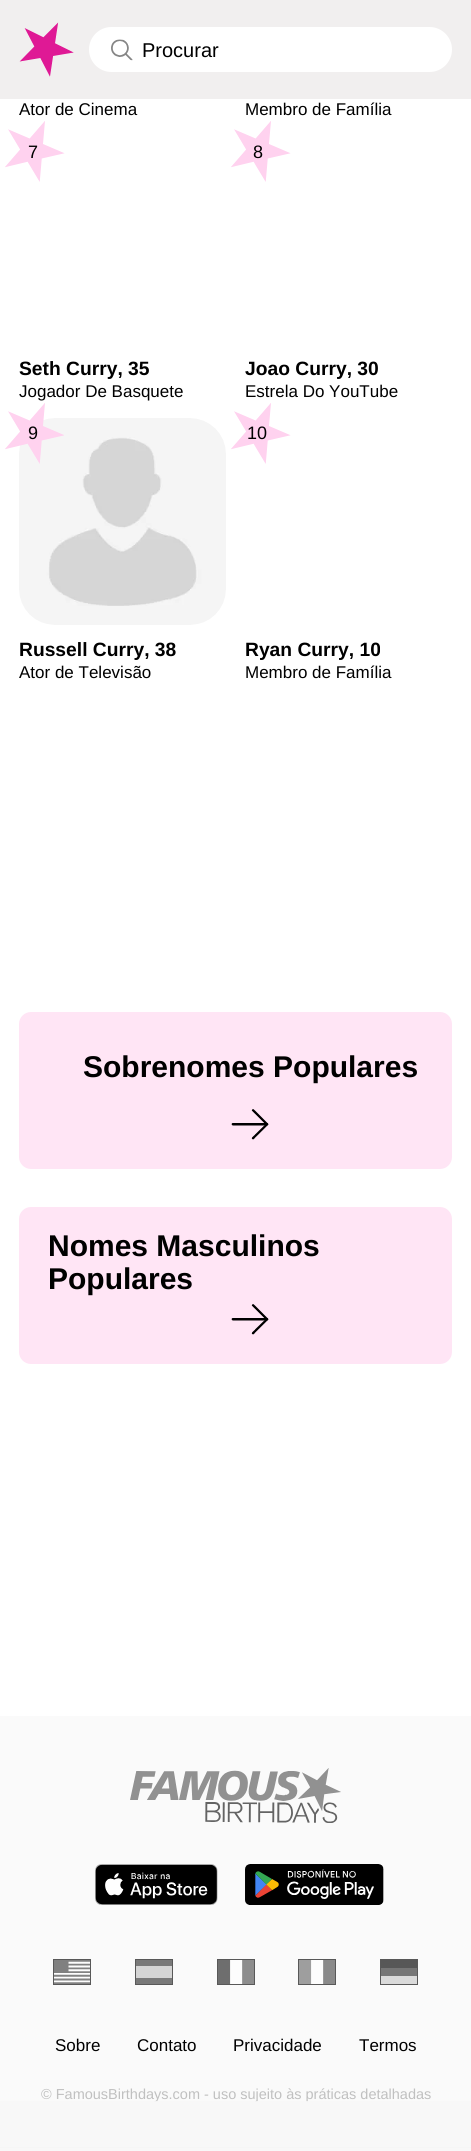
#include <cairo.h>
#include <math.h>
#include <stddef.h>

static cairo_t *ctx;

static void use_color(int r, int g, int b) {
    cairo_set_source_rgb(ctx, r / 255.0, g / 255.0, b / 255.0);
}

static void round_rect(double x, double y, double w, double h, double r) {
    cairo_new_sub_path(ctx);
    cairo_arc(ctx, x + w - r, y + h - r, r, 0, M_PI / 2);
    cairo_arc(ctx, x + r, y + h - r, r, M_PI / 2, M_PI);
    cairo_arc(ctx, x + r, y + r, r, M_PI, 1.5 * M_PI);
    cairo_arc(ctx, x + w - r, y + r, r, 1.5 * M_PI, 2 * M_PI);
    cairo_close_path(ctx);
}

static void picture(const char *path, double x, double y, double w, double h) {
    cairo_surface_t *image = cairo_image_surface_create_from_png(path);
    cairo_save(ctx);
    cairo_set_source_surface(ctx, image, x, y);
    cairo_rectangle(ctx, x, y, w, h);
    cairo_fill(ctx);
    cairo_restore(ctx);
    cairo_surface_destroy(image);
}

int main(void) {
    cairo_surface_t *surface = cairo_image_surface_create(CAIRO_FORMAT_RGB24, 471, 2151);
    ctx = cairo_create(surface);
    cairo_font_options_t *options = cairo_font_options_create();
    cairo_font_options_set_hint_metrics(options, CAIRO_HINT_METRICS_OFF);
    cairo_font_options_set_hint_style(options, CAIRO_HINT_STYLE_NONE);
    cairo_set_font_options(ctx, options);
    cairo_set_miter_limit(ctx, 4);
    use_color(255, 255, 255);
    cairo_paint(ctx);
    use_color(241, 239, 239);
    cairo_rectangle(ctx, 0, 0, 471, 99);
    cairo_fill(ctx);
    picture("img1.png", 19, 22, 55, 55);
    use_color(255, 255, 255);
    round_rect(90, 28, 361, 43, 21.5);
    cairo_fill_preserve(ctx);
    cairo_stroke(ctx);
    picture("img2.png", 111, 39, 22, 22);
    cairo_select_font_face(ctx, "Liberation Sans", CAIRO_FONT_SLANT_NORMAL, CAIRO_FONT_WEIGHT_NORMAL);
    cairo_set_font_size(ctx, 20);
    use_color(0, 0, 0);
    cairo_move_to(ctx, 142, 57);
    cairo_show_text(ctx, "Procurar");
    cairo_set_font_size(ctx, 17);
    cairo_move_to(ctx, 19, 115);
    cairo_show_text(ctx, "Ator de Cinema");
    cairo_move_to(ctx, 245, 115);
    cairo_show_text(ctx, "Membro de Família");
    picture("img3.png", 5, 121, 60, 61);
    cairo_set_font_size(ctx, 18);
    cairo_move_to(ctx, 28, 158);
    cairo_show_text(ctx, "7");
    cairo_select_font_face(ctx, "Liberation Sans", CAIRO_FONT_SLANT_NORMAL, CAIRO_FONT_WEIGHT_BOLD);
    cairo_set_font_size(ctx, 19.25);
    cairo_move_to(ctx, 19, 375);
    cairo_show_text(ctx, "Seth Curry, 35");
    cairo_select_font_face(ctx, "Liberation Sans", CAIRO_FONT_SLANT_NORMAL, CAIRO_FONT_WEIGHT_NORMAL);
    cairo_set_font_size(ctx, 17);
    cairo_move_to(ctx, 19, 397);
    cairo_show_text(ctx, "Jogador De Basquete");
    picture("img4.png", 231, 121, 60, 61);
    cairo_set_font_size(ctx, 18);
    cairo_move_to(ctx, 253, 158);
    cairo_show_text(ctx, "8");
    cairo_select_font_face(ctx, "Liberation Sans", CAIRO_FONT_SLANT_NORMAL, CAIRO_FONT_WEIGHT_BOLD);
    cairo_set_font_size(ctx, 19.25);
    cairo_move_to(ctx, 245, 375);
    cairo_show_text(ctx, "Joao Curry, 30");
    cairo_select_font_face(ctx, "Liberation Sans", CAIRO_FONT_SLANT_NORMAL, CAIRO_FONT_WEIGHT_NORMAL);
    cairo_set_font_size(ctx, 17);
    cairo_move_to(ctx, 245, 397);
    cairo_show_text(ctx, "Estrela Do YouTube");
    picture("img5.png", 19, 418, 207, 207);
    picture("img6.png", 5, 403, 59, 61);
    cairo_set_font_size(ctx, 18);
    cairo_move_to(ctx, 28, 439);
    cairo_show_text(ctx, "9");
    cairo_select_font_face(ctx, "Liberation Sans", CAIRO_FONT_SLANT_NORMAL, CAIRO_FONT_WEIGHT_BOLD);
    cairo_set_font_size(ctx, 19.25);
    cairo_move_to(ctx, 19, 656);
    cairo_show_text(ctx, "Russell Curry, 38");
    cairo_select_font_face(ctx, "Liberation Sans", CAIRO_FONT_SLANT_NORMAL, CAIRO_FONT_WEIGHT_NORMAL);
    cairo_set_font_size(ctx, 17);
    cairo_move_to(ctx, 19, 678);
    cairo_show_text(ctx, "Ator de Televisão");
    picture("img4.png", 231, 403, 60, 61);
    cairo_set_font_size(ctx, 18);
    cairo_move_to(ctx, 247, 439);
    cairo_show_text(ctx, "10");
    cairo_select_font_face(ctx, "Liberation Sans", CAIRO_FONT_SLANT_NORMAL, CAIRO_FONT_WEIGHT_BOLD);
    cairo_set_font_size(ctx, 19.25);
    cairo_move_to(ctx, 245, 656);
    cairo_show_text(ctx, "Ryan Curry, 10");
    cairo_select_font_face(ctx, "Liberation Sans", CAIRO_FONT_SLANT_NORMAL, CAIRO_FONT_WEIGHT_NORMAL);
    cairo_set_font_size(ctx, 17);
    cairo_move_to(ctx, 245, 678);
    cairo_show_text(ctx, "Membro de Família");
    use_color(255, 229, 245);
    round_rect(19, 1012, 433, 157, 12);
    cairo_fill(ctx);
    cairo_select_font_face(ctx, "Liberation Sans", CAIRO_FONT_SLANT_NORMAL, CAIRO_FONT_WEIGHT_BOLD);
    cairo_set_font_size(ctx, 30);
    use_color(0, 0, 0);
    cairo_move_to(ctx, 83, 1077);
    cairo_show_text(ctx, "Sobrenomes Populares");
    picture("img7.png", 231, 1109, 38, 31);
    use_color(255, 229, 245);
    round_rect(19, 1207, 433, 157, 12);
    cairo_fill(ctx);
    use_color(0, 0, 0);
    cairo_move_to(ctx, 48, 1256);
    cairo_show_text(ctx, "Nomes Masculinos");
    cairo_move_to(ctx, 48, 1289);
    cairo_show_text(ctx, "Populares");
    picture("img8.png", 231, 1304, 38, 31);
    use_color(250, 250, 250);
    cairo_rectangle(ctx, 0, 1716, 471, 435);
    cairo_fill(ctx);
    picture("img9.png", 130, 1768, 211, 55);
    picture("img10.png", 95, 1864, 123, 41);
    picture("img11.png", 245, 1864, 139, 41);
    cairo_rectangle(ctx, 53.5, 1959.5, 37, 25);
    use_color(88, 88, 88);
    cairo_set_line_width(ctx, 1);
    cairo_stroke(ctx);
    picture("img12.png", 54, 1960, 36, 24);
    cairo_rectangle(ctx, 135.5, 1959.5, 37, 25);
    cairo_stroke(ctx);
    picture("img13.png", 136, 1960, 36, 24);
    cairo_rectangle(ctx, 217.5, 1959.5, 37, 25);
    cairo_stroke(ctx);
    picture("img14.png", 218, 1960, 36, 24);
    cairo_rectangle(ctx, 298.5, 1959.5, 37, 25);
    cairo_stroke(ctx);
    picture("img15.png", 299, 1960, 36, 24);
    cairo_rectangle(ctx, 380.5, 1959.5, 37, 25);
    cairo_stroke(ctx);
    picture("img16.png", 381, 1960, 36, 24);
    cairo_select_font_face(ctx, "Liberation Sans", CAIRO_FONT_SLANT_NORMAL, CAIRO_FONT_WEIGHT_NORMAL);
    cairo_set_font_size(ctx, 17);
    use_color(0, 0, 0);
    cairo_move_to(ctx, 55, 2051);
    cairo_show_text(ctx, "Sobre");
    cairo_move_to(ctx, 137, 2051);
    cairo_show_text(ctx, "Contato");
    cairo_move_to(ctx, 233, 2051);
    cairo_show_text(ctx, "Privacidade");
    cairo_move_to(ctx, 359, 2051);
    cairo_show_text(ctx, "Termos");
    cairo_set_font_size(ctx, 14.5);
    use_color(192, 192, 192);
    cairo_move_to(ctx, 41, 2099);
    cairo_show_text(ctx, "© FamousBirthdays.com - uso sujeito às práticas detalhadas");
    use_color(230, 230, 230);
    cairo_rectangle(ctx, 0, 2147, 471, 1);
    cairo_fill(ctx);
    cairo_set_source_rgba(ctx, 0.969, 0.969, 0.969, 0.9);
    cairo_rectangle(ctx, 0, 2101, 471, 50);
    cairo_fill(ctx);
    cairo_surface_write_to_png(surface, "result.png");
    cairo_font_options_destroy(options);
    cairo_destroy(ctx);
    cairo_surface_destroy(surface);
    return 0;
}
